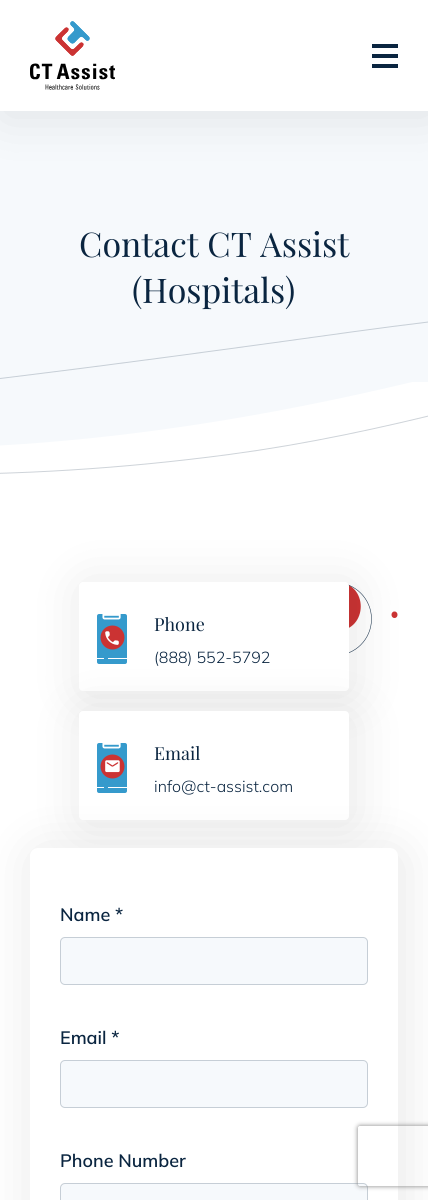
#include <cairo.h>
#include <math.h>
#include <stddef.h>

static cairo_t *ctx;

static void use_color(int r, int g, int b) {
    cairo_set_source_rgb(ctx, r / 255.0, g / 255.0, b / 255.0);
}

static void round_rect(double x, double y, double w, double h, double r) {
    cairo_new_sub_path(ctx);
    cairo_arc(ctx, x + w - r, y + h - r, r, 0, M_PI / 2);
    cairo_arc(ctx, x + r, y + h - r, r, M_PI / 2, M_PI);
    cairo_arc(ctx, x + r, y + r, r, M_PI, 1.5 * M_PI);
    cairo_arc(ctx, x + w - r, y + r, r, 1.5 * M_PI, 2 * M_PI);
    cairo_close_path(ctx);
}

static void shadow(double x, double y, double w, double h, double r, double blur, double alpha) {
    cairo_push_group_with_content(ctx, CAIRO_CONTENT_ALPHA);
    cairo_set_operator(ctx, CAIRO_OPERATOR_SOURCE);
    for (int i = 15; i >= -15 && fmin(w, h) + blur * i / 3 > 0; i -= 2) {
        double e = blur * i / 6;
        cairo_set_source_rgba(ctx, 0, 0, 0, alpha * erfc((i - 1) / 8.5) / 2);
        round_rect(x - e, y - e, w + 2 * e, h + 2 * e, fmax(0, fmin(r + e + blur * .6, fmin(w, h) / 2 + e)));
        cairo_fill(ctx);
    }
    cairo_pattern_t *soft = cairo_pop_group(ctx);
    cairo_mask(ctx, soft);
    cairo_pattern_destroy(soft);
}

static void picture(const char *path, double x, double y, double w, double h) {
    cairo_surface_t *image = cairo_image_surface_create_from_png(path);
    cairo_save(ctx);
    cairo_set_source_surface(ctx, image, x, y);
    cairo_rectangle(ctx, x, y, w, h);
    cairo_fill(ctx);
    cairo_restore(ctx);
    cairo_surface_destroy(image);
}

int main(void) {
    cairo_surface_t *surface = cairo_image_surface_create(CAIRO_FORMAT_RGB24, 428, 1200);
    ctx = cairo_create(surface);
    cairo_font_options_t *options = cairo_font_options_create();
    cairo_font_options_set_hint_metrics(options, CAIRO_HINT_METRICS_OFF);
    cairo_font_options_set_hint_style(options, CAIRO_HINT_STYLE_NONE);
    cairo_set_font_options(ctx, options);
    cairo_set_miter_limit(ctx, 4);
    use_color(255, 255, 255);
    cairo_paint(ctx);
    use_color(246, 249, 252);
    cairo_rectangle(ctx, 0, 111, 428, 271);
    cairo_fill(ctx);
    use_color(0, 0, 0);
    shadow(4, 4, 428, 111, 0, 25, 0.1);
    use_color(255, 255, 255);
    cairo_rectangle(ctx, 0, 0, 428, 111);
    cairo_fill(ctx);
    picture("img2.png", 55, 21, 35, 35);
    picture("img1.png", 30, 21, 85, 69);
    use_color(10, 37, 64);
    cairo_rectangle(ctx, 372, 44, 26, 4);
    cairo_fill(ctx);
    cairo_rectangle(ctx, 372, 54, 26, 4);
    cairo_fill(ctx);
    cairo_rectangle(ctx, 372, 64, 26, 4);
    cairo_fill(ctx);
    cairo_select_font_face(ctx, "Playfair Display", CAIRO_FONT_SLANT_NORMAL, CAIRO_FONT_WEIGHT_NORMAL);
    cairo_set_font_size(ctx, 34);
    cairo_move_to(ctx, 79, 257);
    cairo_show_text(ctx, "Contact CT Assist");
    cairo_move_to(ctx, 132, 303);
    cairo_show_text(ctx, "(Hospitals)");
    picture("img3.png", 0, 321, 428, 153);
    use_color(203, 51, 51);
    cairo_new_path(ctx);
    cairo_move_to(ctx, 336, 631);
    cairo_curve_to(ctx, 304, 631, 304, 582, 336, 582);
    cairo_curve_to(ctx, 369, 582, 369, 631, 336, 631);
    cairo_close_path(ctx);
    cairo_fill(ctx);
    cairo_arc(ctx, 335, 619, 36.5, 0, 2 * M_PI);
    use_color(10, 37, 64);
    cairo_set_line_width(ctx, 0.5);
    cairo_stroke(ctx);
    use_color(203, 51, 51);
    cairo_new_path(ctx);
    cairo_move_to(ctx, 394.5, 618);
    cairo_curve_to(ctx, 390.5, 618, 390.5, 611.5, 394.5, 611.5);
    cairo_curve_to(ctx, 398.5, 611.5, 398.5, 618, 394.5, 618);
    cairo_close_path(ctx);
    cairo_fill(ctx);
    use_color(0, 0, 0);
    shadow(83, 586, 270, 109, 4, 25, 0.1);
    use_color(255, 255, 255);
    round_rect(79, 582, 270, 109, 4);
    cairo_fill(ctx);
    picture("img4.png", 97, 614, 30, 50);
    cairo_set_font_size(ctx, 18);
    use_color(10, 37, 64);
    cairo_move_to(ctx, 154, 631);
    cairo_show_text(ctx, "Phone");
    cairo_select_font_face(ctx, "Mulish Light", CAIRO_FONT_SLANT_NORMAL, CAIRO_FONT_WEIGHT_NORMAL);
    cairo_set_font_size(ctx, 16);
    cairo_move_to(ctx, 154, 663);
    cairo_show_text(ctx, "(888) 552-5792");
    use_color(0, 0, 0);
    shadow(83, 715, 270, 109, 4, 25, 0.1);
    use_color(255, 255, 255);
    round_rect(79, 711, 270, 109, 4);
    cairo_fill(ctx);
    picture("img5.png", 97, 743, 30, 50);
    cairo_select_font_face(ctx, "Playfair Display", CAIRO_FONT_SLANT_NORMAL, CAIRO_FONT_WEIGHT_NORMAL);
    cairo_set_font_size(ctx, 18);
    use_color(10, 37, 64);
    cairo_move_to(ctx, 154, 760);
    cairo_show_text(ctx, "Email");
    cairo_select_font_face(ctx, "Mulish Light", CAIRO_FONT_SLANT_NORMAL, CAIRO_FONT_WEIGHT_NORMAL);
    cairo_set_font_size(ctx, 16);
    cairo_move_to(ctx, 154, 792);
    cairo_show_text(ctx, "info@ct-assist.com");
    use_color(0, 0, 0);
    shadow(34, 852, 368, 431, 8, 25, 0.1);
    use_color(255, 255, 255);
    round_rect(30, 848, 368, 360, 8);
    cairo_fill(ctx);
    cairo_select_font_face(ctx, "Mulish SemiBold", CAIRO_FONT_SLANT_NORMAL, CAIRO_FONT_WEIGHT_NORMAL);
    cairo_set_font_size(ctx, 18);
    use_color(10, 37, 64);
    cairo_move_to(ctx, 60, 921);
    cairo_show_text(ctx, "Name *");
    use_color(246, 249, 252);
    round_rect(60, 937, 308, 48, 5);
    cairo_fill(ctx);
    round_rect(60.5, 937.5, 307, 47, 4.5);
    cairo_set_source_rgba(ctx, 0.039, 0.145, 0.251, 0.2);
    cairo_set_line_width(ctx, 1);
    cairo_stroke(ctx);
    use_color(10, 37, 64);
    cairo_move_to(ctx, 60, 1044);
    cairo_show_text(ctx, "Email *");
    use_color(246, 249, 252);
    round_rect(60, 1060, 308, 48, 5);
    cairo_fill(ctx);
    round_rect(60.5, 1060.5, 307, 47, 4.5);
    cairo_set_source_rgba(ctx, 0.039, 0.145, 0.251, 0.2);
    cairo_stroke(ctx);
    use_color(10, 37, 64);
    cairo_move_to(ctx, 60, 1167);
    cairo_show_text(ctx, "Phone Number");
    use_color(246, 249, 252);
    round_rect(60, 1183, 308, 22, 5);
    cairo_fill(ctx);
    round_rect(60.5, 1183.5, 307, 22, 4.5);
    cairo_set_source_rgba(ctx, 0.039, 0.145, 0.251, 0.2);
    cairo_stroke(ctx);
    cairo_save(ctx);
    cairo_set_fill_rule(ctx, CAIRO_FILL_RULE_EVEN_ODD);
    cairo_new_path(ctx);
    cairo_move_to(ctx, 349, 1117);
    cairo_line_to(ctx, 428, 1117);
    cairo_line_to(ctx, 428, 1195);
    cairo_line_to(ctx, 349, 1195);
    cairo_close_path(ctx);
    cairo_move_to(ctx, 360, 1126);
    cairo_line_to(ctx, 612, 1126);
    cairo_curve_to(ctx, 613, 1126, 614, 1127, 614, 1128);
    cairo_line_to(ctx, 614, 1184);
    cairo_curve_to(ctx, 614, 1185, 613, 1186, 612, 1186);
    cairo_line_to(ctx, 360, 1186);
    cairo_curve_to(ctx, 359, 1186, 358, 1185, 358, 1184);
    cairo_line_to(ctx, 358, 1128);
    cairo_curve_to(ctx, 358, 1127, 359, 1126, 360, 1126);
    cairo_close_path(ctx);
    cairo_clip(ctx);
    use_color(128, 128, 128);
    shadow(358, 1126, 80, 60, 2, 2.5, 1);
    cairo_restore(ctx);
    cairo_surface_write_to_png(surface, "result.png");
    cairo_font_options_destroy(options);
    cairo_destroy(ctx);
    cairo_surface_destroy(surface);
    return 0;
}
